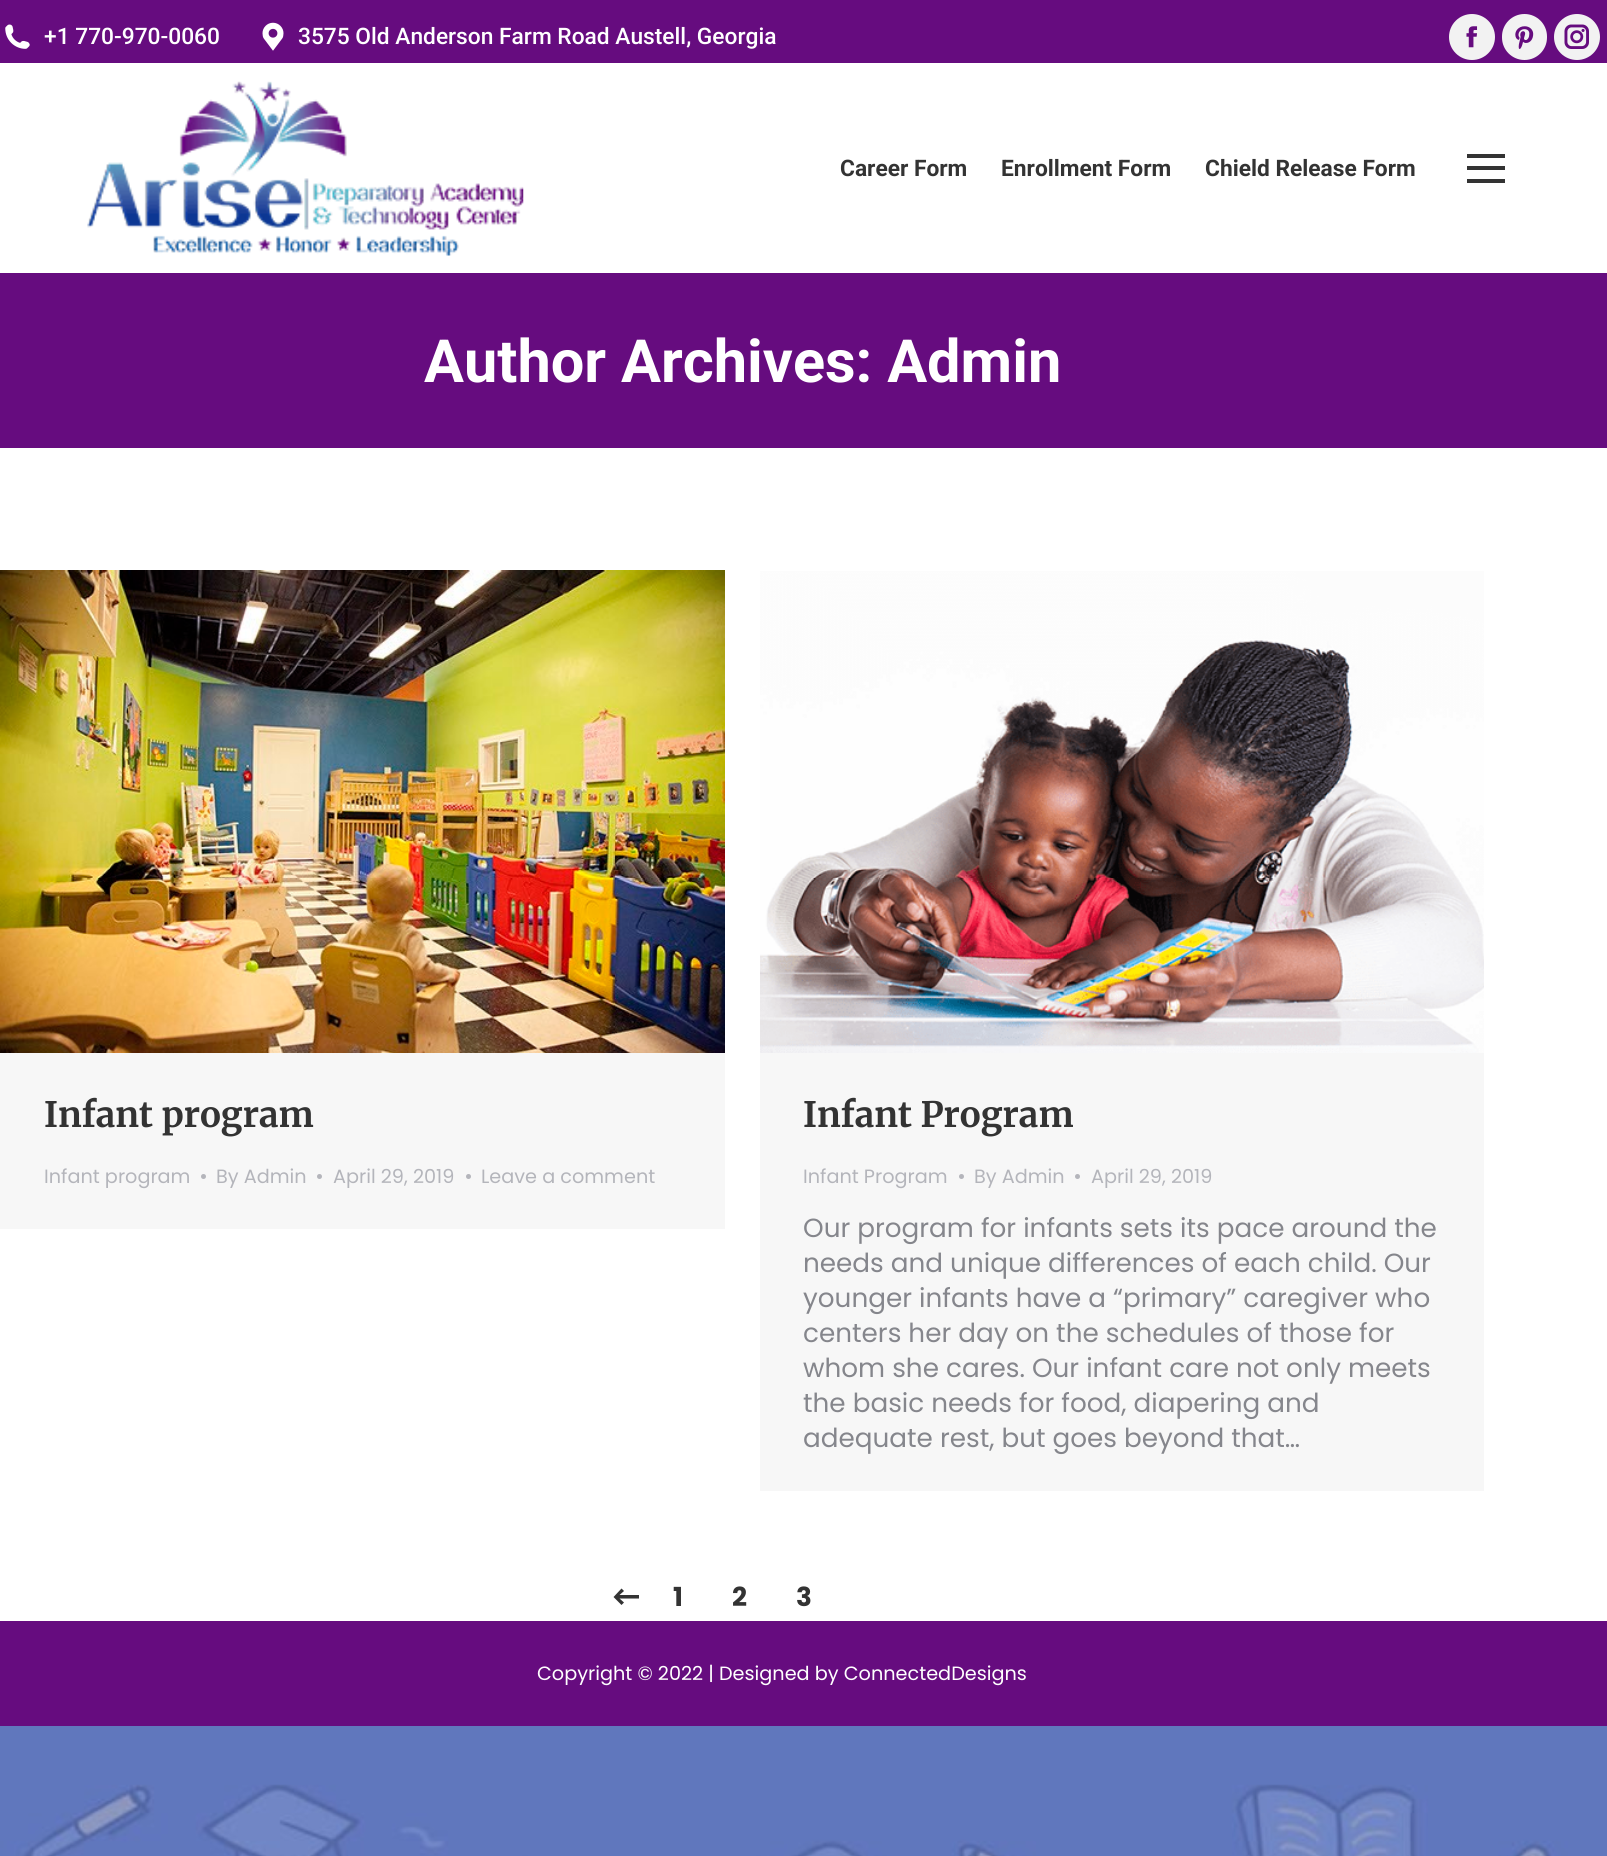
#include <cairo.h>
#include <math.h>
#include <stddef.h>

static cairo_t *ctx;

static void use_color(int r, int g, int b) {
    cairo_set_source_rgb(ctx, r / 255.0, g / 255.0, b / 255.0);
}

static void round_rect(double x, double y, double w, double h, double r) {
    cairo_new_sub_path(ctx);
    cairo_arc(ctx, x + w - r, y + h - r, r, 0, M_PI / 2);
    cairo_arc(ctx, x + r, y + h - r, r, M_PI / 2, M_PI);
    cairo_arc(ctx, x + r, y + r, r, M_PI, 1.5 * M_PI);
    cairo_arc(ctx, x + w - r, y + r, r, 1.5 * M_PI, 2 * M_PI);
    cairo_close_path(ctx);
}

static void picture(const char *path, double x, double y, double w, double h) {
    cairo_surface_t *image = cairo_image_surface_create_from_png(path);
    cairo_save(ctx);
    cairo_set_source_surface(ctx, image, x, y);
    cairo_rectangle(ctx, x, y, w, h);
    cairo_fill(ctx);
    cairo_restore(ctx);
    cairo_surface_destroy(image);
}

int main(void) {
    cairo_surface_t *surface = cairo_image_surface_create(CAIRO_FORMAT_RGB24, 1607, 1856);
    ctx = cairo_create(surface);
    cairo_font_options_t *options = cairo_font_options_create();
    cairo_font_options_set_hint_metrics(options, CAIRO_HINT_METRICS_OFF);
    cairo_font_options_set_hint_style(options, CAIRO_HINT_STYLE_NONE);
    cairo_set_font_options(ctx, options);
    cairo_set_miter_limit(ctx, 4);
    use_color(255, 255, 255);
    cairo_paint(ctx);
    picture("img1.png", 0, 1726, 1607, 130);
    use_color(102, 12, 127);
    cairo_rectangle(ctx, 0, 0, 1607, 63);
    cairo_fill(ctx);
    picture("img2.png", 5, 24, 25, 25);
    cairo_select_font_face(ctx, "Roboto Medium", CAIRO_FONT_SLANT_NORMAL, CAIRO_FONT_WEIGHT_NORMAL);
    cairo_set_font_size(ctx, 22.75);
    use_color(255, 255, 255);
    cairo_move_to(ctx, 44, 44);
    cairo_show_text(ctx, "+1 770-970-0060");
    picture("img3.png", 262, 22, 22, 29);
    cairo_move_to(ctx, 298, 44);
    cairo_show_text(ctx, "3575 Old Anderson Farm Road Austell, Georgia");
    use_color(242, 242, 242);
    cairo_new_path(ctx);
    cairo_arc(ctx, 1472, 37, 23, 0, 2 * M_PI);
    cairo_fill(ctx);
    picture("img4.png", 1466, 26, 12, 22);
    round_rect(1502, 14, 45, 46, 22.5);
    cairo_fill(ctx);
    picture("img5.png", 1515, 26, 19, 23);
    cairo_arc(ctx, 1577, 37, 23, 0, 2 * M_PI);
    cairo_fill(ctx);
    picture("img6.png", 1564, 24, 25, 25);
    picture("img7.png", 87, 81, 437, 175);
    cairo_select_font_face(ctx, "Roboto", CAIRO_FONT_SLANT_NORMAL, CAIRO_FONT_WEIGHT_BOLD);
    use_color(51, 51, 51);
    cairo_move_to(ctx, 840, 176);
    cairo_show_text(ctx, "Career Form");
    cairo_move_to(ctx, 1001, 176);
    cairo_show_text(ctx, "Enrollment Form");
    cairo_move_to(ctx, 1205, 176);
    cairo_show_text(ctx, "Chield Release Form");
    cairo_rectangle(ctx, 1467, 154, 38, 4);
    cairo_fill(ctx);
    cairo_rectangle(ctx, 1467, 166, 38, 4);
    cairo_fill(ctx);
    cairo_rectangle(ctx, 1467, 179, 38, 4);
    cairo_fill(ctx);
    use_color(102, 12, 127);
    cairo_rectangle(ctx, 0, 273, 1607, 175);
    cairo_fill(ctx);
    cairo_set_font_size(ctx, 59.5);
    use_color(255, 255, 255);
    cairo_move_to(ctx, 424, 382);
    cairo_show_text(ctx, "Author Archives: Admin");
    use_color(247, 247, 247);
    cairo_rectangle(ctx, 0, 1053, 725, 176);
    cairo_fill(ctx);
    picture("img8.png", 0, 570, 725, 483);
    cairo_select_font_face(ctx, "Merriweather", CAIRO_FONT_SLANT_NORMAL, CAIRO_FONT_WEIGHT_BOLD);
    cairo_set_font_size(ctx, 35);
    use_color(51, 51, 51);
    cairo_move_to(ctx, 44, 1127);
    cairo_show_text(ctx, "Infant program");
    cairo_select_font_face(ctx, "Poppins", CAIRO_FONT_SLANT_NORMAL, CAIRO_FONT_WEIGHT_NORMAL);
    cairo_set_font_size(ctx, 19.25);
    use_color(180, 181, 187);
    cairo_move_to(ctx, 44, 1183);
    cairo_show_text(ctx, "Infant program");
    cairo_new_path(ctx);
    cairo_arc(ctx, 203.5, 1176.5, 2.5, 0, 2 * M_PI);
    cairo_fill(ctx);
    cairo_move_to(ctx, 216, 1183);
    cairo_show_text(ctx, "By Admin");
    cairo_new_path(ctx);
    cairo_arc(ctx, 319.5, 1176.5, 2.5, 0, 2 * M_PI);
    cairo_fill(ctx);
    cairo_move_to(ctx, 333, 1183);
    cairo_show_text(ctx, "April 29, 2019");
    cairo_new_path(ctx);
    cairo_arc(ctx, 468.5, 1176.5, 2.5, 0, 2 * M_PI);
    cairo_fill(ctx);
    cairo_move_to(ctx, 481, 1183);
    cairo_show_text(ctx, "Leave a comment");
    use_color(247, 247, 247);
    cairo_rectangle(ctx, 760, 1053, 724, 438);
    cairo_fill(ctx);
    picture("img9.png", 760, 571, 724, 482);
    cairo_select_font_face(ctx, "Merriweather", CAIRO_FONT_SLANT_NORMAL, CAIRO_FONT_WEIGHT_BOLD);
    cairo_set_font_size(ctx, 35);
    use_color(51, 51, 51);
    cairo_move_to(ctx, 803, 1127);
    cairo_show_text(ctx, "Infant Program");
    cairo_select_font_face(ctx, "Poppins", CAIRO_FONT_SLANT_NORMAL, CAIRO_FONT_WEIGHT_NORMAL);
    cairo_set_font_size(ctx, 19.25);
    use_color(180, 181, 187);
    cairo_move_to(ctx, 803, 1183);
    cairo_show_text(ctx, "Infant Program");
    cairo_new_path(ctx);
    cairo_arc(ctx, 961.5, 1176.5, 2.5, 0, 2 * M_PI);
    cairo_fill(ctx);
    cairo_move_to(ctx, 974, 1183);
    cairo_show_text(ctx, "By Admin");
    cairo_new_path(ctx);
    cairo_arc(ctx, 1077.5, 1176.5, 2.5, 0, 2 * M_PI);
    cairo_fill(ctx);
    cairo_move_to(ctx, 1091, 1183);
    cairo_show_text(ctx, "April 29, 2019");
    cairo_set_font_size(ctx, 26.25);
    use_color(133, 134, 140);
    cairo_move_to(ctx, 803, 1237);
    cairo_show_text(ctx, "Our program for infants sets its pace around the");
    cairo_move_to(ctx, 803, 1272);
    cairo_show_text(ctx, "needs and unique differences of each child. Our");
    cairo_move_to(ctx, 803, 1307);
    cairo_show_text(ctx, "younger infants have a “primary” caregiver who");
    cairo_move_to(ctx, 803, 1342);
    cairo_show_text(ctx, "centers her day on the schedules of those for");
    cairo_move_to(ctx, 803, 1377);
    cairo_show_text(ctx, "whom she cares. Our infant care not only meets");
    cairo_move_to(ctx, 803, 1412);
    cairo_show_text(ctx, "the basic needs for food, diapering and");
    cairo_move_to(ctx, 803, 1447);
    cairo_show_text(ctx, "adequate rest, but goes beyond that…");
    use_color(51, 51, 51);
    cairo_new_path(ctx);
    cairo_move_to(ctx, 639, 1595);
    cairo_line_to(ctx, 619.5, 1595);
    cairo_line_to(ctx, 624, 1591);
    cairo_line_to(ctx, 621.5, 1588.5);
    cairo_line_to(ctx, 613.5, 1597);
    cairo_line_to(ctx, 621.5, 1605);
    cairo_line_to(ctx, 624, 1602.5);
    cairo_line_to(ctx, 619.5, 1598.5);
    cairo_line_to(ctx, 639, 1598.5);
    cairo_close_path(ctx);
    cairo_fill(ctx);
    cairo_select_font_face(ctx, "Poppins", CAIRO_FONT_SLANT_NORMAL, CAIRO_FONT_WEIGHT_BOLD);
    cairo_move_to(ctx, 673, 1606);
    cairo_show_text(ctx, "1");
    cairo_move_to(ctx, 732, 1606);
    cairo_show_text(ctx, "2");
    cairo_move_to(ctx, 796, 1606);
    cairo_show_text(ctx, "3");
    use_color(102, 12, 127);
    cairo_rectangle(ctx, 0, 1621, 1607, 105);
    cairo_fill(ctx);
    cairo_select_font_face(ctx, "Poppins", CAIRO_FONT_SLANT_NORMAL, CAIRO_FONT_WEIGHT_NORMAL);
    cairo_set_font_size(ctx, 19.25);
    use_color(255, 255, 255);
    cairo_move_to(ctx, 537, 1680);
    cairo_show_text(ctx, "Copyright © 2022 | Designed by ConnectedDesigns");
    cairo_surface_write_to_png(surface, "result.png");
    cairo_font_options_destroy(options);
    cairo_destroy(ctx);
    cairo_surface_destroy(surface);
    return 0;
}
